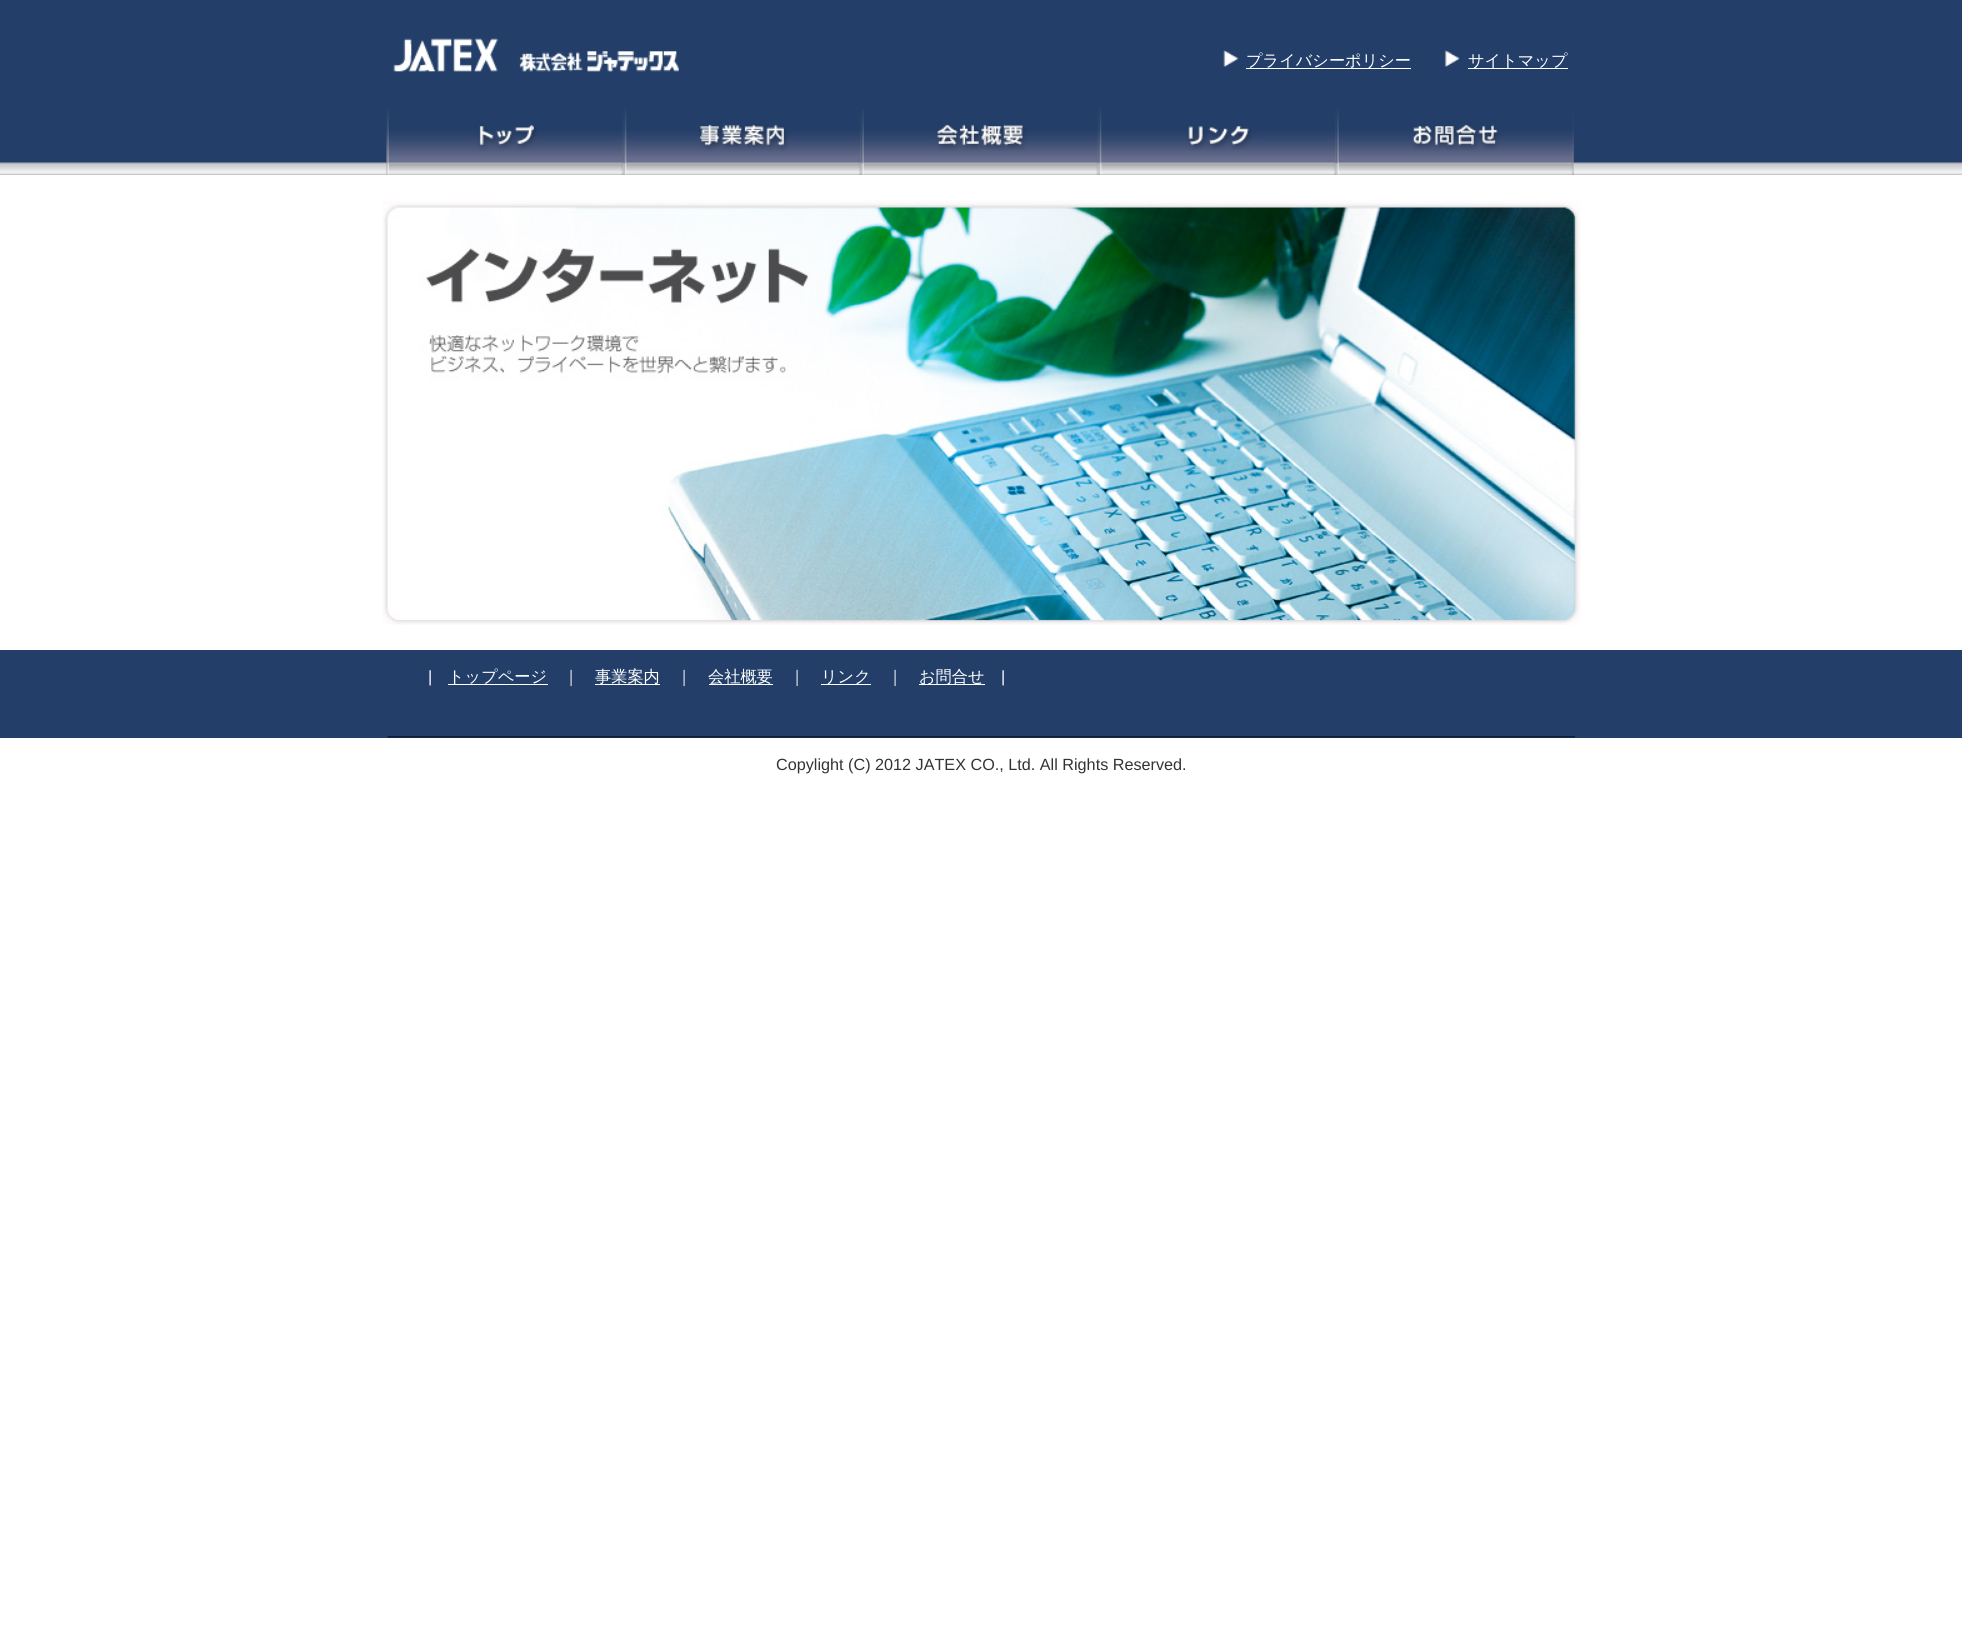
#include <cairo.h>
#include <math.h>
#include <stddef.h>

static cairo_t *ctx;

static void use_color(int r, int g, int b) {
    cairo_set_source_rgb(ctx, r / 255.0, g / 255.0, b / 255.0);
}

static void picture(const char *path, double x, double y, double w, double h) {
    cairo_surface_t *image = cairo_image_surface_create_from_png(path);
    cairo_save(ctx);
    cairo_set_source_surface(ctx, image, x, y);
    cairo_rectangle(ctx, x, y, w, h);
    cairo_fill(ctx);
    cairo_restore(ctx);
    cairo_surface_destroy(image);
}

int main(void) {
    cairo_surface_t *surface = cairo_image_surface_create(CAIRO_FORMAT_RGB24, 1962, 1644);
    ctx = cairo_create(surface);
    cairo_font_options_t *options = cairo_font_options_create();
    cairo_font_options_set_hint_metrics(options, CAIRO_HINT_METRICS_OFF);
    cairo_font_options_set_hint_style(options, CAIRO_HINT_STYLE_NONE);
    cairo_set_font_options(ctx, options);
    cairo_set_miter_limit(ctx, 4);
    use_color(255, 255, 255);
    cairo_paint(ctx);
    picture("img1.png", 0, 0, 1962, 175);
    picture("img2.png", 393, 38, 286, 34);
    picture("img3.png", 1223, 50, 16, 17);
    use_color(255, 255, 255);
    cairo_rectangle(ctx, 1246, 68, 165, 1);
    cairo_fill(ctx);
    cairo_select_font_face(ctx, "WenQuanYi Zen Hei Medium", CAIRO_FONT_SLANT_NORMAL, CAIRO_FONT_WEIGHT_NORMAL);
    cairo_set_font_size(ctx, 16.2);
    cairo_move_to(ctx, 1246, 66);
    cairo_show_text(ctx, "プライバシーポリシー");
    picture("img4.png", 1444, 50, 16, 17);
    cairo_rectangle(ctx, 1468, 68, 100, 1);
    cairo_fill(ctx);
    cairo_move_to(ctx, 1468, 66);
    cairo_show_text(ctx, "サイトマップ");
    picture("img5.png", 386, 109, 238, 66);
    picture("img6.png", 623, 108, 239, 67);
    picture("img7.png", 861, 109, 238, 66);
    picture("img8.png", 1098, 108, 239, 67);
    picture("img9.png", 1336, 109, 238, 66);
    picture("img10.png", 382, 200, 1199, 425);
    use_color(35, 63, 105);
    cairo_rectangle(ctx, 0, 650, 1962, 88);
    cairo_fill(ctx);
    picture("img11.png", 387, 736, 1188, 2);
    cairo_select_font_face(ctx, "Liberation Sans", CAIRO_FONT_SLANT_NORMAL, CAIRO_FONT_WEIGHT_NORMAL);
    use_color(255, 255, 255);
    cairo_move_to(ctx, 428, 682);
    cairo_show_text(ctx, "|");
    cairo_select_font_face(ctx, "WenQuanYi Zen Hei Medium", CAIRO_FONT_SLANT_NORMAL, CAIRO_FONT_WEIGHT_NORMAL);
    cairo_move_to(ctx, 448, 682);
    cairo_show_text(ctx, "トップページ");
    cairo_rectangle(ctx, 448, 684, 100, 1);
    cairo_fill(ctx);
    cairo_move_to(ctx, 563, 682);
    cairo_show_text(ctx, "｜");
    cairo_rectangle(ctx, 595, 684, 65, 1);
    cairo_fill(ctx);
    cairo_move_to(ctx, 595, 682);
    cairo_show_text(ctx, "事業案内");
    cairo_move_to(ctx, 676, 682);
    cairo_show_text(ctx, "｜");
    cairo_rectangle(ctx, 709, 684, 64, 1);
    cairo_fill(ctx);
    cairo_move_to(ctx, 708, 682);
    cairo_show_text(ctx, "会社概要");
    cairo_move_to(ctx, 789, 682);
    cairo_show_text(ctx, "｜");
    cairo_rectangle(ctx, 821, 684, 50, 1);
    cairo_fill(ctx);
    cairo_move_to(ctx, 821, 682);
    cairo_show_text(ctx, "リンク");
    cairo_move_to(ctx, 887, 682);
    cairo_show_text(ctx, "｜");
    cairo_rectangle(ctx, 919, 684, 66, 1);
    cairo_fill(ctx);
    cairo_move_to(ctx, 919, 682);
    cairo_show_text(ctx, "お問合せ");
    cairo_select_font_face(ctx, "Liberation Sans", CAIRO_FONT_SLANT_NORMAL, CAIRO_FONT_WEIGHT_NORMAL);
    cairo_move_to(ctx, 1001, 682);
    cairo_show_text(ctx, "|");
    use_color(51, 51, 51);
    cairo_move_to(ctx, 776, 770);
    cairo_show_text(ctx, "Copylight (C) 2012 JATEX CO., Ltd. All Rights Reserved.");
    cairo_surface_write_to_png(surface, "result.png");
    cairo_font_options_destroy(options);
    cairo_destroy(ctx);
    cairo_surface_destroy(surface);
    return 0;
}
